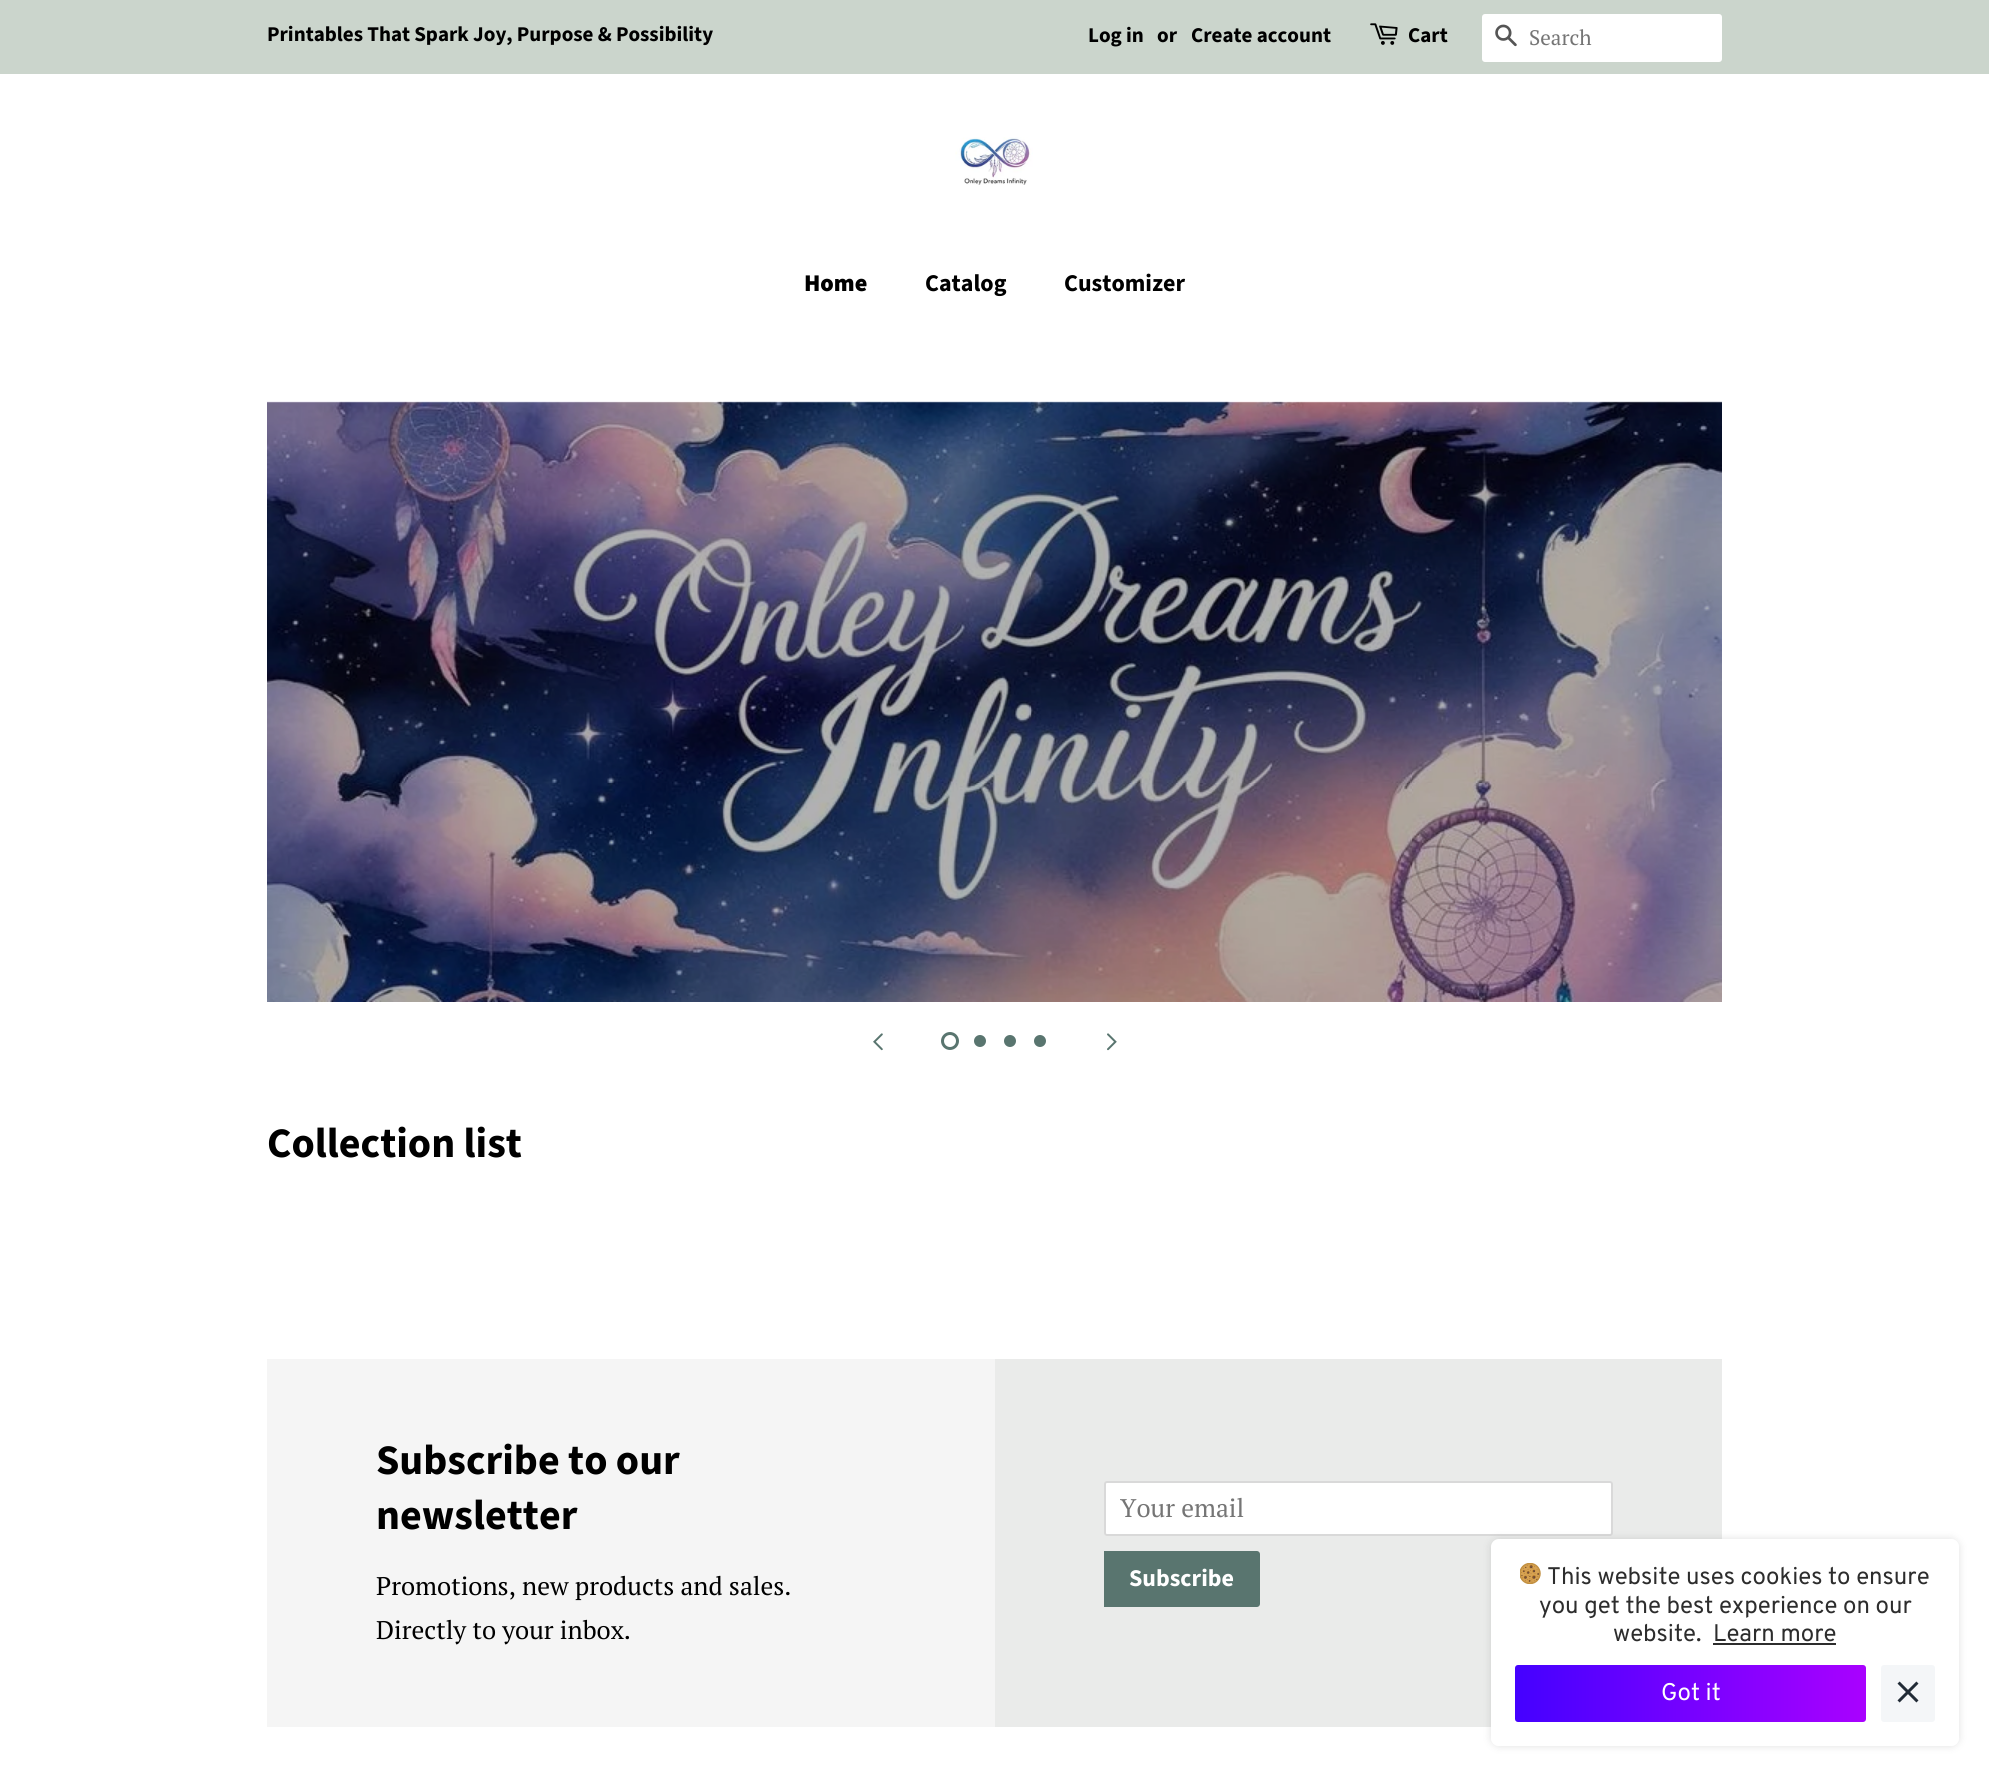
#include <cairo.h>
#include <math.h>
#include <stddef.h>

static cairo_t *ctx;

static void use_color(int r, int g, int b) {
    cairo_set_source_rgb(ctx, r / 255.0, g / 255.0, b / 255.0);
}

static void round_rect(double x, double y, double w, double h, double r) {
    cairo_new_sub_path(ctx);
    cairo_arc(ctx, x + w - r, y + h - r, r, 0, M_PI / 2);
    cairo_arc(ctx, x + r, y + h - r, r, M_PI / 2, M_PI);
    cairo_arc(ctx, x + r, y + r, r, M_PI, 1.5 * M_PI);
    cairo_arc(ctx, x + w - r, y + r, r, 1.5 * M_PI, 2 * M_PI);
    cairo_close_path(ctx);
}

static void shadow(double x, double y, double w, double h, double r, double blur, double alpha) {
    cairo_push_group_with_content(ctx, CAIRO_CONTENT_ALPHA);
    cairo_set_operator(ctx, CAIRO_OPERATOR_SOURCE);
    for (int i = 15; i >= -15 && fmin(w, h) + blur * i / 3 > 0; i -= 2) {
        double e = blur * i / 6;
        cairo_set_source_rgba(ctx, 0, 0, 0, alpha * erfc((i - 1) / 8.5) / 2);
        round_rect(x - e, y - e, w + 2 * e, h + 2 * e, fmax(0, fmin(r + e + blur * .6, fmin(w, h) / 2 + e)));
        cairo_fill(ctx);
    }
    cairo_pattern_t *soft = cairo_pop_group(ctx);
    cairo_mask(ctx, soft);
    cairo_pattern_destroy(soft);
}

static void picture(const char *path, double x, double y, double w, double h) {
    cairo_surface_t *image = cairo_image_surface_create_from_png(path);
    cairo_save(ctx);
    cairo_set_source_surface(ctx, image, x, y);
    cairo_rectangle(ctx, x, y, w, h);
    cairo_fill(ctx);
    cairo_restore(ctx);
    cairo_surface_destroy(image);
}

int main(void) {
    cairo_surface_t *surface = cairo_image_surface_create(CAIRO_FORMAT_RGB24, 1989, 1776);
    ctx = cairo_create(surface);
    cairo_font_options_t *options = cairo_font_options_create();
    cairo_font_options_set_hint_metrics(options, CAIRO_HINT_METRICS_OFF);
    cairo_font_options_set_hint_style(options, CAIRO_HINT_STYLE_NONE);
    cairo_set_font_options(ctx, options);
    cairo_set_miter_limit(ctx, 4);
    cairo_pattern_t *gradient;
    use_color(255, 255, 255);
    cairo_paint(ctx);
    use_color(203, 213, 204);
    cairo_rectangle(ctx, 0, 0, 1989, 74);
    cairo_fill(ctx);
    cairo_select_font_face(ctx, "Source Sans Pro", CAIRO_FONT_SLANT_NORMAL, CAIRO_FONT_WEIGHT_BOLD);
    cairo_set_font_size(ctx, 21);
    use_color(0, 0, 0);
    cairo_move_to(ctx, 267, 41);
    cairo_show_text(ctx, "Printables That Spark Joy, Purpose & Possibility");
    cairo_move_to(ctx, 1088, 42);
    cairo_show_text(ctx, "Log in");
    cairo_move_to(ctx, 1157, 42);
    cairo_show_text(ctx, "or");
    cairo_move_to(ctx, 1191, 42);
    cairo_show_text(ctx, "Create account");
    picture("img1.png", 1370, 23, 28, 22);
    cairo_move_to(ctx, 1408, 42);
    cairo_show_text(ctx, "Cart");
    use_color(255, 255, 255);
    round_rect(1482, 14, 240, 48, 3);
    cairo_fill(ctx);
    picture("img2.png", 1495, 24, 22, 23);
    cairo_select_font_face(ctx, "PT Serif", CAIRO_FONT_SLANT_NORMAL, CAIRO_FONT_WEIGHT_NORMAL);
    use_color(117, 117, 117);
    cairo_move_to(ctx, 1529, 45);
    cairo_show_text(ctx, "Search");
    picture("img3.png", 955, 137, 78, 48);
    cairo_select_font_face(ctx, "Source Sans Pro Black", CAIRO_FONT_SLANT_NORMAL, CAIRO_FONT_WEIGHT_NORMAL);
    cairo_set_font_size(ctx, 24);
    use_color(0, 0, 0);
    cairo_move_to(ctx, 804, 291);
    cairo_show_text(ctx, "Home");
    cairo_select_font_face(ctx, "Source Sans Pro", CAIRO_FONT_SLANT_NORMAL, CAIRO_FONT_WEIGHT_BOLD);
    cairo_move_to(ctx, 925, 291);
    cairo_show_text(ctx, "Catalog");
    cairo_move_to(ctx, 1064, 291);
    cairo_show_text(ctx, "Customizer");
    picture("img4.png", 267, 401, 1455, 601);
    cairo_arc(ctx, 950, 1041, 7.5, 0, 2 * M_PI);
    use_color(89, 117, 111);
    cairo_set_line_width(ctx, 3);
    cairo_stroke(ctx);
    cairo_arc(ctx, 980, 1041, 7.5, 0, 2 * M_PI);
    cairo_fill_preserve(ctx);
    use_color(255, 255, 255);
    cairo_stroke(ctx);
    use_color(89, 117, 111);
    cairo_arc(ctx, 1010, 1041, 7.5, 0, 2 * M_PI);
    cairo_fill_preserve(ctx);
    use_color(255, 255, 255);
    cairo_stroke(ctx);
    use_color(89, 117, 111);
    cairo_arc(ctx, 1040, 1041, 7.5, 0, 2 * M_PI);
    cairo_fill_preserve(ctx);
    use_color(255, 255, 255);
    cairo_stroke(ctx);
    picture("img5.png", 873, 1033, 10, 18);
    picture("img6.png", 1107, 1033, 10, 18);
    cairo_set_font_size(ctx, 42);
    use_color(0, 0, 0);
    cairo_move_to(ctx, 267, 1157);
    cairo_show_text(ctx, "Collection list");
    use_color(245, 245, 245);
    cairo_rectangle(ctx, 267, 1359, 728, 368);
    cairo_fill(ctx);
    use_color(0, 0, 0);
    cairo_move_to(ctx, 376, 1474);
    cairo_show_text(ctx, "Subscribe to our");
    cairo_move_to(ctx, 376, 1529);
    cairo_show_text(ctx, "newsletter");
    cairo_select_font_face(ctx, "PT Serif", CAIRO_FONT_SLANT_NORMAL, CAIRO_FONT_WEIGHT_NORMAL);
    cairo_set_font_size(ctx, 25.5);
    cairo_move_to(ctx, 376, 1595);
    cairo_show_text(ctx, "Promotions, new products and sales.");
    cairo_move_to(ctx, 376, 1639);
    cairo_show_text(ctx, "Directly to your inbox.");
    use_color(234, 235, 234);
    cairo_rectangle(ctx, 995, 1359, 727, 368);
    cairo_fill(ctx);
    use_color(255, 255, 255);
    round_rect(1104, 1481, 509, 55, 3);
    cairo_fill(ctx);
    round_rect(1105, 1482, 507, 53, 2);
    cairo_set_source_rgba(ctx, 0, 0, 0, 0.15);
    cairo_set_line_width(ctx, 2);
    cairo_stroke(ctx);
    use_color(117, 117, 117);
    cairo_move_to(ctx, 1120, 1517);
    cairo_show_text(ctx, "Your email");
    use_color(89, 117, 111);
    cairo_new_path(ctx);
    cairo_move_to(ctx, 1104, 1551);
    cairo_line_to(ctx, 1257, 1551);
    cairo_curve_to(ctx, 1258.5, 1551, 1260, 1552.5, 1260, 1554);
    cairo_line_to(ctx, 1260, 1604);
    cairo_curve_to(ctx, 1260, 1605.5, 1258.5, 1607, 1257, 1607);
    cairo_line_to(ctx, 1104, 1607);
    cairo_close_path(ctx);
    cairo_fill(ctx);
    cairo_select_font_face(ctx, "Source Sans Pro", CAIRO_FONT_SLANT_NORMAL, CAIRO_FONT_WEIGHT_BOLD);
    cairo_set_font_size(ctx, 24);
    use_color(255, 255, 255);
    cairo_move_to(ctx, 1129, 1586);
    cairo_show_text(ctx, "Subscribe");
    round_rect(1491, 1539, 468, 207, 8);
    cairo_fill(ctx);
    cairo_save(ctx);
    cairo_set_fill_rule(ctx, CAIRO_FILL_RULE_EVEN_ODD);
    cairo_new_path(ctx);
    cairo_move_to(ctx, 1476, 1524);
    cairo_line_to(ctx, 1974, 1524);
    cairo_line_to(ctx, 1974, 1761);
    cairo_line_to(ctx, 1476, 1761);
    cairo_close_path(ctx);
    cairo_move_to(ctx, 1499, 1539);
    cairo_line_to(ctx, 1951, 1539);
    cairo_curve_to(ctx, 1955.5, 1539, 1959, 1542.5, 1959, 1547);
    cairo_line_to(ctx, 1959, 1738);
    cairo_curve_to(ctx, 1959, 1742.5, 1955.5, 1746, 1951, 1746);
    cairo_line_to(ctx, 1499, 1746);
    cairo_curve_to(ctx, 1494.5, 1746, 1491, 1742.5, 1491, 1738);
    cairo_line_to(ctx, 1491, 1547);
    cairo_curve_to(ctx, 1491, 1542.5, 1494.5, 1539, 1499, 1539);
    cairo_close_path(ctx);
    cairo_clip(ctx);
    use_color(0, 0, 0);
    shadow(1491, 1539, 468, 207, 8, 4.5, 0.12);
    cairo_restore(ctx);
    picture("img7.png", 1520, 1563, 21, 21);
    cairo_select_font_face(ctx, "Overpass", CAIRO_FONT_SLANT_NORMAL, CAIRO_FONT_WEIGHT_NORMAL);
    use_color(45, 45, 45);
    cairo_move_to(ctx, 1547, 1584);
    cairo_show_text(ctx, "This website uses cookies to ensure");
    cairo_move_to(ctx, 1539, 1613);
    cairo_show_text(ctx, "you get the best experience on our");
    cairo_move_to(ctx, 1613, 1641);
    cairo_show_text(ctx, "website.");
    cairo_move_to(ctx, 1713, 1641);
    cairo_show_text(ctx, "Learn more");
    cairo_rectangle(ctx, 1713, 1643, 123, 2);
    cairo_fill(ctx);
    gradient = cairo_pattern_create_linear(1515, 1694, 1866, 1694);
    cairo_pattern_add_color_stop_rgba(gradient, 0, 0.267, 0.004, 1, 1);
    cairo_pattern_add_color_stop_rgba(gradient, 1, 0.663, 0.004, 1, 1);
    cairo_set_source(ctx, gradient);
    cairo_pattern_destroy(gradient);
    round_rect(1515, 1665, 351, 57, 3);
    cairo_fill(ctx);
    use_color(255, 255, 255);
    cairo_move_to(ctx, 1661, 1700);
    cairo_show_text(ctx, "Got it");
    use_color(244, 246, 248);
    round_rect(1881, 1665, 54, 57, 3);
    cairo_fill(ctx);
    picture("img8.png", 1897, 1681, 22, 22);
    cairo_surface_write_to_png(surface, "result.png");
    cairo_font_options_destroy(options);
    cairo_destroy(ctx);
    cairo_surface_destroy(surface);
    return 0;
}
